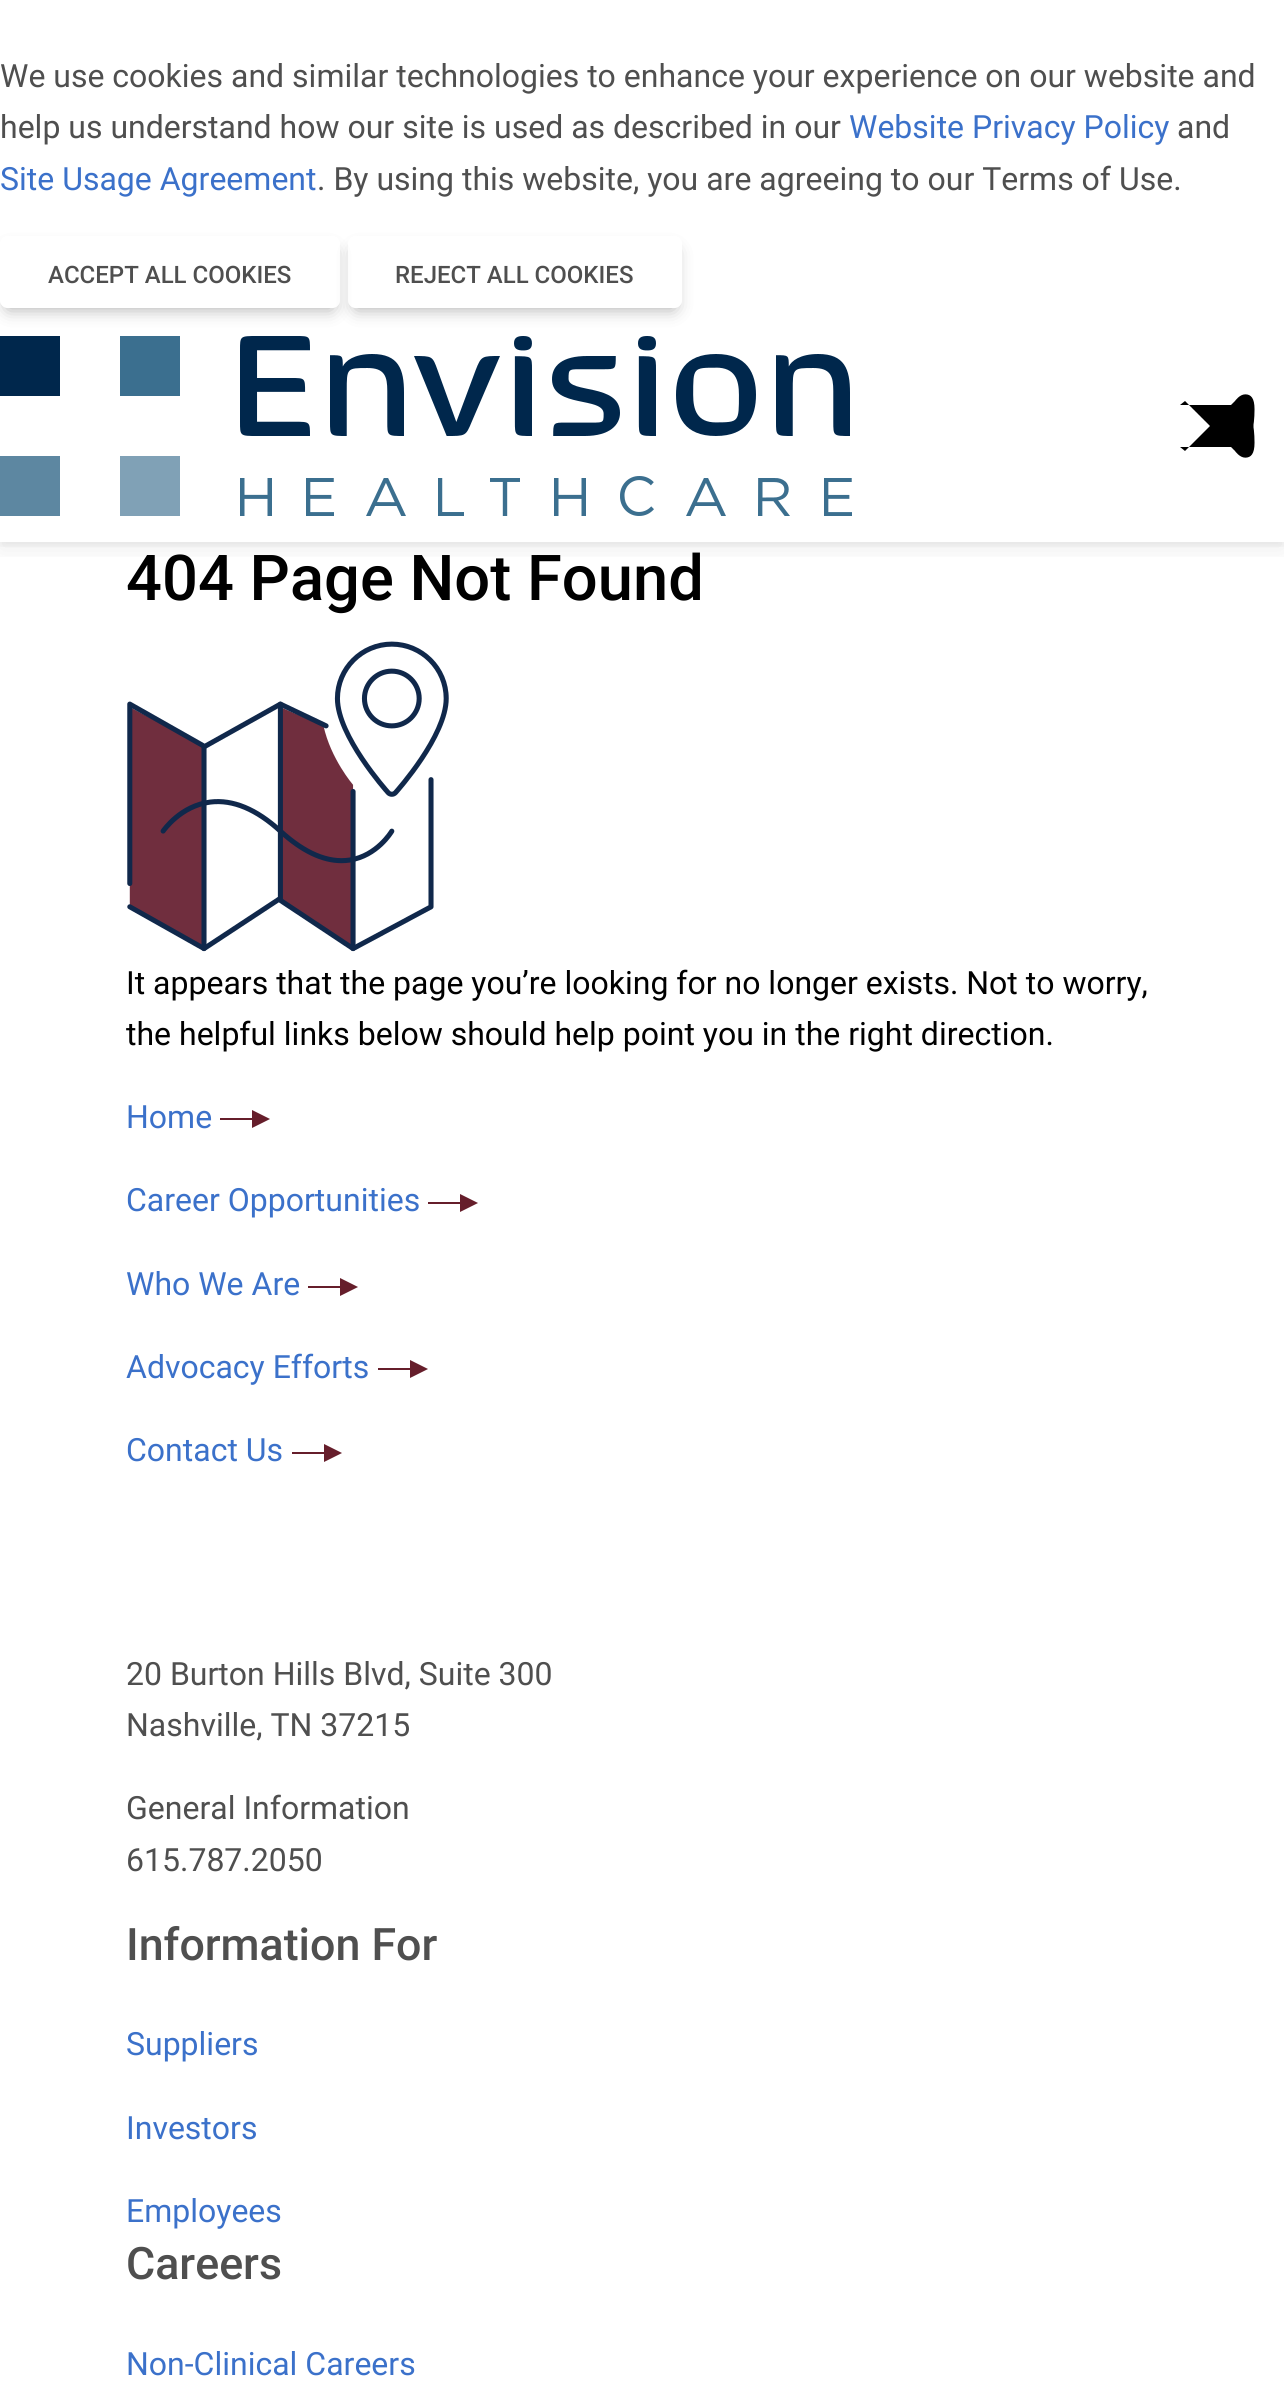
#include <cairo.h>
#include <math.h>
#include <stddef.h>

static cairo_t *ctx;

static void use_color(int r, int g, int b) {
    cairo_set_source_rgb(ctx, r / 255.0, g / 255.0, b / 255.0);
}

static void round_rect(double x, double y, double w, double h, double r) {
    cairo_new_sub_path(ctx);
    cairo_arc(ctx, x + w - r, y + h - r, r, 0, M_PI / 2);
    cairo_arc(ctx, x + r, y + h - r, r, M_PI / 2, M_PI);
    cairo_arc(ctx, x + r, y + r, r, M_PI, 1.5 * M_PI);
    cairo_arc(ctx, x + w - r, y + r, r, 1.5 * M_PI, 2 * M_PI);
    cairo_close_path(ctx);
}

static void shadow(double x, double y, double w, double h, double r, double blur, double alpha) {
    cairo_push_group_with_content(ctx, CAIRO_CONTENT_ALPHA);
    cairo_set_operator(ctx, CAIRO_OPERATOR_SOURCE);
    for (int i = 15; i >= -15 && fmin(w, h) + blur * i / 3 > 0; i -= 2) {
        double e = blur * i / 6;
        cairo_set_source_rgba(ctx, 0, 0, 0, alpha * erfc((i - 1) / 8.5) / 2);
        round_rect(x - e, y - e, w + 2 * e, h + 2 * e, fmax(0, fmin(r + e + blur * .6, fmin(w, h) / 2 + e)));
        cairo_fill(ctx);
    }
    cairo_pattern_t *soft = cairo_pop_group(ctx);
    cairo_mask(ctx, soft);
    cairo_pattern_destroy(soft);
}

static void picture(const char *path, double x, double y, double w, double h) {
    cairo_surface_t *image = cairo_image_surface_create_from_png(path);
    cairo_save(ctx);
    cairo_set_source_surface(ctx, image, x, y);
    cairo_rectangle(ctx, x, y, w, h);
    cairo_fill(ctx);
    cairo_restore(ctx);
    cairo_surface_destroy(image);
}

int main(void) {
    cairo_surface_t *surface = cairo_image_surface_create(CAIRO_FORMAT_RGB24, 1284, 2384);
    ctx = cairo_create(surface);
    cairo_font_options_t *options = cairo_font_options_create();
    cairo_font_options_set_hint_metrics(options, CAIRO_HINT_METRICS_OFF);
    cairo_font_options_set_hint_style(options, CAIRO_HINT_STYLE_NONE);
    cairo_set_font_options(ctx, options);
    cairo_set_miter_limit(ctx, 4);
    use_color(255, 255, 255);
    cairo_paint(ctx);
    cairo_select_font_face(ctx, "Roboto", CAIRO_FONT_SLANT_NORMAL, CAIRO_FONT_WEIGHT_NORMAL);
    cairo_set_font_size(ctx, 32);
    use_color(79, 79, 79);
    cairo_move_to(ctx, 0, 87);
    cairo_show_text(ctx, "We use cookies and similar technologies to enhance your experience on our website and");
    cairo_move_to(ctx, 0, 138);
    cairo_show_text(ctx, "help us understand how our site is used as described in our");
    use_color(59, 113, 202);
    cairo_move_to(ctx, 849, 138);
    cairo_show_text(ctx, "Website Privacy Policy");
    use_color(79, 79, 79);
    cairo_move_to(ctx, 1177, 138);
    cairo_show_text(ctx, "and");
    use_color(59, 113, 202);
    cairo_move_to(ctx, 0, 190);
    cairo_show_text(ctx, "Site Usage Agreement");
    use_color(79, 79, 79);
    cairo_move_to(ctx, 317, 190);
    cairo_show_text(ctx, ". By using this website, you are agreeing to our Terms of Use.");
    cairo_save(ctx);
    cairo_set_fill_rule(ctx, CAIRO_FILL_RULE_EVEN_ODD);
    cairo_new_path(ctx);
    cairo_move_to(ctx, 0, 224);
    cairo_line_to(ctx, 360, 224);
    cairo_line_to(ctx, 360, 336);
    cairo_line_to(ctx, 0, 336);
    cairo_close_path(ctx);
    cairo_move_to(ctx, 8, 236);
    cairo_line_to(ctx, 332, 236);
    cairo_curve_to(ctx, 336.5, 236, 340, 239.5, 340, 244);
    cairo_line_to(ctx, 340, 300);
    cairo_curve_to(ctx, 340, 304.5, 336.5, 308, 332, 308);
    cairo_line_to(ctx, 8, 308);
    cairo_curve_to(ctx, 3.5, 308, 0, 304.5, 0, 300);
    cairo_line_to(ctx, 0, 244);
    cairo_curve_to(ctx, 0, 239.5, 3.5, 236, 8, 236);
    cairo_close_path(ctx);
    cairo_clip(ctx);
    use_color(0, 0, 0);
    shadow(8, 252, 324, 56, 0, 9, 0.35);
    cairo_restore(ctx);
    cairo_select_font_face(ctx, "Roboto Medium", CAIRO_FONT_SLANT_NORMAL, CAIRO_FONT_WEIGHT_NORMAL);
    cairo_set_font_size(ctx, 24);
    cairo_move_to(ctx, 48, 283);
    cairo_show_text(ctx, "ACCEPT ALL COOKIES");
    cairo_save(ctx);
    cairo_set_fill_rule(ctx, CAIRO_FILL_RULE_EVEN_ODD);
    cairo_new_path(ctx);
    cairo_move_to(ctx, 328, 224);
    cairo_line_to(ctx, 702, 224);
    cairo_line_to(ctx, 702, 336);
    cairo_line_to(ctx, 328, 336);
    cairo_close_path(ctx);
    cairo_move_to(ctx, 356, 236);
    cairo_line_to(ctx, 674, 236);
    cairo_curve_to(ctx, 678.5, 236, 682, 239.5, 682, 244);
    cairo_line_to(ctx, 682, 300);
    cairo_curve_to(ctx, 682, 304.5, 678.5, 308, 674, 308);
    cairo_line_to(ctx, 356, 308);
    cairo_curve_to(ctx, 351.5, 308, 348, 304.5, 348, 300);
    cairo_line_to(ctx, 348, 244);
    cairo_curve_to(ctx, 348, 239.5, 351.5, 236, 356, 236);
    cairo_close_path(ctx);
    cairo_clip(ctx);
    use_color(0, 0, 0);
    shadow(356, 252, 318, 56, 0, 9, 0.35);
    cairo_restore(ctx);
    cairo_move_to(ctx, 395, 283);
    cairo_show_text(ctx, "REJECT ALL COOKIES");
    cairo_save(ctx);
    cairo_rectangle(ctx, 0, 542, 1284, 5);
    cairo_clip(ctx);
    use_color(0, 0, 0);
    shadow(0, 312, 1284, 234, 0, 4, 0.05);
    cairo_restore(ctx);
    cairo_save(ctx);
    cairo_rectangle(ctx, 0, 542, 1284, 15);
    cairo_clip(ctx);
    use_color(0, 0, 0);
    shadow(0, 316, 1284, 234, 0, 12, 0.07);
    cairo_restore(ctx);
    picture("img1.png", 0, 336, 852, 180);
    picture("img2.png", 1180, 394, 75, 64);
    cairo_set_font_size(ctx, 63.25);
    use_color(0, 0, 0);
    cairo_move_to(ctx, 126, 600);
    cairo_show_text(ctx, "404 Page Not Found");
    picture("img3.png", 127, 641, 322, 311);
    cairo_select_font_face(ctx, "Roboto", CAIRO_FONT_SLANT_NORMAL, CAIRO_FONT_WEIGHT_NORMAL);
    cairo_set_font_size(ctx, 32);
    cairo_move_to(ctx, 126, 994);
    cairo_show_text(ctx, "It appears that the page you’re looking for no longer exists. Not to worry,");
    cairo_move_to(ctx, 126, 1045);
    cairo_show_text(ctx, "the helpful links below should help point you in the right direction.");
    use_color(59, 113, 202);
    cairo_move_to(ctx, 126, 1128);
    cairo_show_text(ctx, "Home");
    use_color(102, 30, 43);
    cairo_set_fill_rule(ctx, CAIRO_FILL_RULE_EVEN_ODD);
    cairo_new_path(ctx);
    cairo_move_to(ctx, 252, 1110);
    cairo_line_to(ctx, 270, 1119);
    cairo_line_to(ctx, 252, 1128);
    cairo_line_to(ctx, 252, 1120);
    cairo_line_to(ctx, 220, 1120);
    cairo_line_to(ctx, 220, 1118);
    cairo_line_to(ctx, 252, 1118);
    cairo_close_path(ctx);
    cairo_fill(ctx);
    use_color(59, 113, 202);
    cairo_move_to(ctx, 126, 1211);
    cairo_show_text(ctx, "Career Opportunities");
    use_color(102, 30, 43);
    cairo_new_path(ctx);
    cairo_move_to(ctx, 460, 1194);
    cairo_line_to(ctx, 478, 1203);
    cairo_line_to(ctx, 460, 1212);
    cairo_line_to(ctx, 460, 1204);
    cairo_line_to(ctx, 428, 1204);
    cairo_line_to(ctx, 428, 1202);
    cairo_line_to(ctx, 460, 1202);
    cairo_close_path(ctx);
    cairo_fill(ctx);
    use_color(59, 113, 202);
    cairo_move_to(ctx, 126, 1295);
    cairo_show_text(ctx, "Who We Are");
    use_color(102, 30, 43);
    cairo_new_path(ctx);
    cairo_move_to(ctx, 340, 1278);
    cairo_line_to(ctx, 358, 1287);
    cairo_line_to(ctx, 340, 1296);
    cairo_line_to(ctx, 340, 1288);
    cairo_line_to(ctx, 308, 1288);
    cairo_line_to(ctx, 308, 1286);
    cairo_line_to(ctx, 340, 1286);
    cairo_close_path(ctx);
    cairo_fill(ctx);
    use_color(59, 113, 202);
    cairo_move_to(ctx, 126, 1378);
    cairo_show_text(ctx, "Advocacy Efforts");
    use_color(102, 30, 43);
    cairo_new_path(ctx);
    cairo_move_to(ctx, 410, 1360);
    cairo_line_to(ctx, 428, 1369);
    cairo_line_to(ctx, 410, 1378);
    cairo_line_to(ctx, 410, 1370);
    cairo_line_to(ctx, 378, 1370);
    cairo_line_to(ctx, 378, 1368);
    cairo_line_to(ctx, 410, 1368);
    cairo_close_path(ctx);
    cairo_fill(ctx);
    use_color(59, 113, 202);
    cairo_move_to(ctx, 126, 1461);
    cairo_show_text(ctx, "Contact Us");
    use_color(102, 30, 43);
    cairo_new_path(ctx);
    cairo_move_to(ctx, 324, 1444);
    cairo_line_to(ctx, 342, 1453);
    cairo_line_to(ctx, 324, 1462);
    cairo_line_to(ctx, 324, 1454);
    cairo_line_to(ctx, 292, 1454);
    cairo_line_to(ctx, 292, 1452);
    cairo_line_to(ctx, 324, 1452);
    cairo_close_path(ctx);
    cairo_fill(ctx);
    use_color(79, 79, 79);
    cairo_move_to(ctx, 126, 1685);
    cairo_show_text(ctx, "20 Burton Hills Blvd, Suite 300");
    cairo_move_to(ctx, 126, 1736);
    cairo_show_text(ctx, "Nashville, TN 37215");
    cairo_move_to(ctx, 126, 1819);
    cairo_show_text(ctx, "General Information");
    cairo_move_to(ctx, 126, 1871);
    cairo_show_text(ctx, "615.787.2050");
    cairo_select_font_face(ctx, "Roboto Medium", CAIRO_FONT_SLANT_NORMAL, CAIRO_FONT_WEIGHT_NORMAL);
    cairo_set_font_size(ctx, 44.75);
    cairo_move_to(ctx, 126, 1960);
    cairo_show_text(ctx, "Information For");
    cairo_select_font_face(ctx, "Roboto", CAIRO_FONT_SLANT_NORMAL, CAIRO_FONT_WEIGHT_NORMAL);
    cairo_set_font_size(ctx, 32);
    use_color(59, 113, 202);
    cairo_move_to(ctx, 126, 2055);
    cairo_show_text(ctx, "Suppliers");
    cairo_move_to(ctx, 126, 2139);
    cairo_show_text(ctx, "Investors");
    cairo_move_to(ctx, 126, 2222);
    cairo_show_text(ctx, "Employees");
    cairo_select_font_face(ctx, "Roboto Medium", CAIRO_FONT_SLANT_NORMAL, CAIRO_FONT_WEIGHT_NORMAL);
    cairo_set_font_size(ctx, 44.75);
    use_color(79, 79, 79);
    cairo_move_to(ctx, 126, 2279);
    cairo_show_text(ctx, "Careers");
    cairo_select_font_face(ctx, "Roboto", CAIRO_FONT_SLANT_NORMAL, CAIRO_FONT_WEIGHT_NORMAL);
    cairo_set_font_size(ctx, 32);
    use_color(59, 113, 202);
    cairo_move_to(ctx, 126, 2375);
    cairo_show_text(ctx, "Non-Clinical Careers");
    cairo_surface_write_to_png(surface, "result.png");
    cairo_font_options_destroy(options);
    cairo_destroy(ctx);
    cairo_surface_destroy(surface);
    return 0;
}
